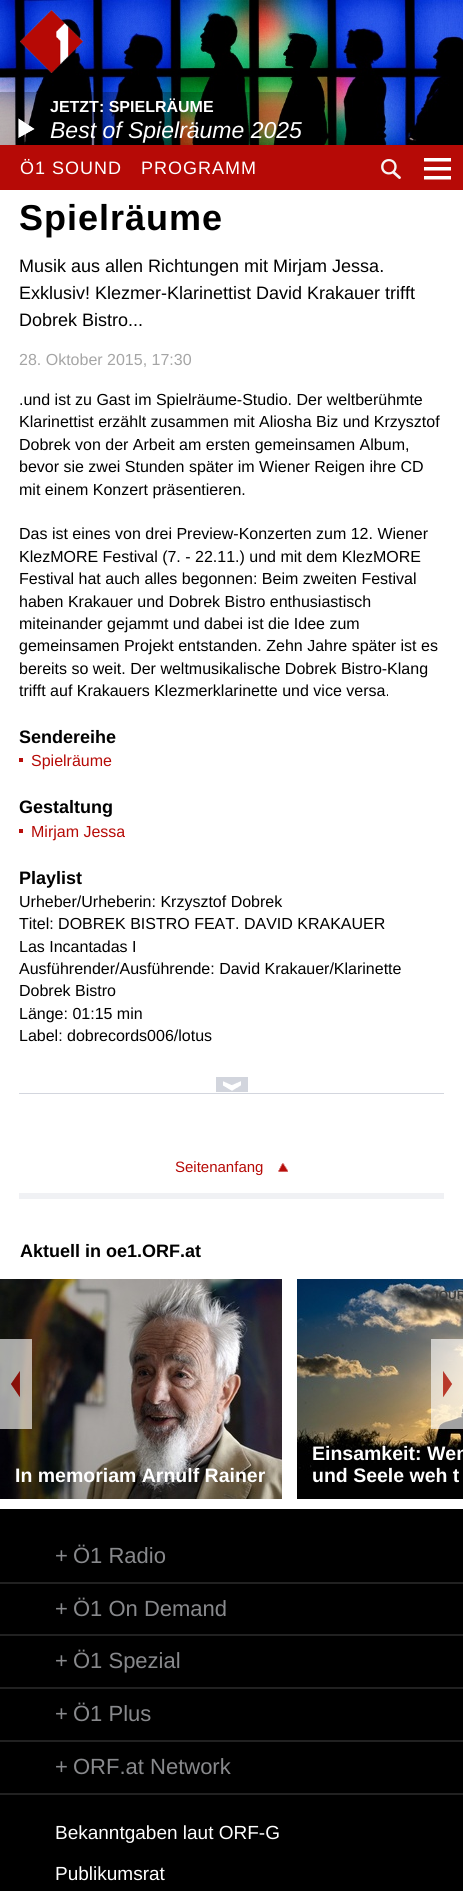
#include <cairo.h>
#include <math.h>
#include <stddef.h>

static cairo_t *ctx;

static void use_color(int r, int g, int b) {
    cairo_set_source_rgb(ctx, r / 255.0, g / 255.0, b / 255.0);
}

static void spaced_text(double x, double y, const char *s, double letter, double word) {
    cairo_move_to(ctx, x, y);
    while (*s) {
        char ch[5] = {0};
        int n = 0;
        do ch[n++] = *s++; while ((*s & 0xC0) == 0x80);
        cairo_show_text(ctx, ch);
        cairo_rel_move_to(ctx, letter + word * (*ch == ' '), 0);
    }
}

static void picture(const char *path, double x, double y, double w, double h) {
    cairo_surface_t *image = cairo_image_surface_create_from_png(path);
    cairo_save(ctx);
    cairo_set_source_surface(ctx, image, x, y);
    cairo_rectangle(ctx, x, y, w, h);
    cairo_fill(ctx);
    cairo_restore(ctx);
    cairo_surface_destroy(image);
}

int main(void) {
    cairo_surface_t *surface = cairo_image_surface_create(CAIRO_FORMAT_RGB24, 463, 1891);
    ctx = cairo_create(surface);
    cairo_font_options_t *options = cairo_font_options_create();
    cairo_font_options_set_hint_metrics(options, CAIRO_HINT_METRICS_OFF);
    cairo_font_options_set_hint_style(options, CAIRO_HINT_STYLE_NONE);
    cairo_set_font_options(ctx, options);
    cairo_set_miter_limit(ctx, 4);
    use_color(255, 255, 255);
    cairo_paint(ctx);
    picture("img2.png", 0, 0, 463, 145);
    picture("img1.png", 20, 10, 63, 63);
    cairo_set_source_rgba(ctx, 0, 0, 0, 0.25);
    cairo_rectangle(ctx, 0, 92, 289, 53);
    cairo_fill(ctx);
    cairo_select_font_face(ctx, "Liberation Sans", CAIRO_FONT_SLANT_NORMAL, CAIRO_FONT_WEIGHT_BOLD);
    cairo_set_font_size(ctx, 16);
    use_color(255, 255, 255);
    cairo_move_to(ctx, 50, 112);
    cairo_show_text(ctx, "JETZT: SPIELRÄUME");
    picture("img3.png", 18, 118, 17, 20);
    cairo_select_font_face(ctx, "Liberation Sans", CAIRO_FONT_SLANT_ITALIC, CAIRO_FONT_WEIGHT_NORMAL);
    cairo_set_font_size(ctx, 23);
    cairo_move_to(ctx, 50, 138);
    cairo_show_text(ctx, "Best of Spielräume 2025");
    use_color(182, 10, 6);
    cairo_rectangle(ctx, 0, 145, 463, 45);
    cairo_fill(ctx);
    cairo_select_font_face(ctx, "Liberation Sans", CAIRO_FONT_SLANT_NORMAL, CAIRO_FONT_WEIGHT_NORMAL);
    cairo_set_font_size(ctx, 18);
    use_color(255, 255, 255);
    spaced_text(20, 174, "Ö1 SOUND", 1, 0);
    spaced_text(141, 174, "PROGRAMM", 1, 0);
    picture("img4.png", 381, 159, 20, 20);
    picture("img5.png", 424, 158, 27, 22);
    cairo_select_font_face(ctx, "Liberation Sans", CAIRO_FONT_SLANT_NORMAL, CAIRO_FONT_WEIGHT_BOLD);
    cairo_set_font_size(ctx, 36);
    use_color(0, 0, 0);
    spaced_text(19, 230, "Spielräume", 1, 0);
    cairo_select_font_face(ctx, "Liberation Sans", CAIRO_FONT_SLANT_NORMAL, CAIRO_FONT_WEIGHT_NORMAL);
    cairo_set_font_size(ctx, 18);
    cairo_move_to(ctx, 19, 272);
    cairo_show_text(ctx, "Musik aus allen Richtungen mit Mirjam Jessa.");
    cairo_move_to(ctx, 19, 299);
    cairo_show_text(ctx, "Exklusiv! Klezmer-Klarinettist David Krakauer trifft");
    cairo_move_to(ctx, 19, 326);
    cairo_show_text(ctx, "Dobrek Bistro...");
    cairo_set_font_size(ctx, 16);
    use_color(165, 165, 165);
    cairo_move_to(ctx, 19, 365);
    cairo_show_text(ctx, "28. Oktober 2015, 17:30");
    use_color(0, 0, 0);
    cairo_move_to(ctx, 19, 405);
    cairo_show_text(ctx, ".und ist zu Gast im Spielräume-Studio. Der weltberühmte");
    cairo_move_to(ctx, 19, 427);
    cairo_show_text(ctx, "Klarinettist erzählt zusammen mit Aliosha Biz und Krzysztof");
    cairo_move_to(ctx, 19, 450);
    cairo_show_text(ctx, "Dobrek von der Arbeit am ersten gemeinsamen Album,");
    cairo_move_to(ctx, 19, 472);
    cairo_show_text(ctx, "bevor sie zwei Stunden später im Wiener Reigen ihre CD");
    cairo_move_to(ctx, 19, 495);
    cairo_show_text(ctx, "mit einem Konzert präsentieren.");
    cairo_move_to(ctx, 19, 539);
    cairo_show_text(ctx, "Das ist eines von drei Preview-Konzerten zum 12. Wiener");
    cairo_move_to(ctx, 19, 562);
    cairo_show_text(ctx, "KlezMORE Festival (7. - 22.11.) und mit dem KlezMORE");
    cairo_move_to(ctx, 19, 584);
    cairo_show_text(ctx, "Festival hat auch alles begonnen: Beim zweiten Festival");
    cairo_move_to(ctx, 19, 607);
    cairo_show_text(ctx, "haben Krakauer und Dobrek Bistro enthusiastisch");
    cairo_move_to(ctx, 19, 629);
    cairo_show_text(ctx, "miteinander gejammt und dabei ist die Idee zum");
    cairo_move_to(ctx, 19, 651);
    cairo_show_text(ctx, "gemeinsamen Projekt entstanden. Zehn Jahre später ist es");
    cairo_move_to(ctx, 19, 674);
    cairo_show_text(ctx, "bereits so weit. Der weltmusikalische Dobrek Bistro-Klang");
    cairo_move_to(ctx, 19, 696);
    cairo_show_text(ctx, "trifft auf Krakauers Klezmerklarinette und vice versa.");
    cairo_select_font_face(ctx, "Liberation Sans", CAIRO_FONT_SLANT_NORMAL, CAIRO_FONT_WEIGHT_BOLD);
    cairo_set_font_size(ctx, 18);
    cairo_move_to(ctx, 19, 743);
    cairo_show_text(ctx, "Sendereihe");
    use_color(183, 14, 11);
    cairo_rectangle(ctx, 19, 758, 4, 4);
    cairo_fill(ctx);
    cairo_select_font_face(ctx, "Liberation Sans", CAIRO_FONT_SLANT_NORMAL, CAIRO_FONT_WEIGHT_NORMAL);
    cairo_set_font_size(ctx, 16);
    use_color(182, 10, 6);
    cairo_move_to(ctx, 31, 766);
    cairo_show_text(ctx, "Spielräume");
    cairo_select_font_face(ctx, "Liberation Sans", CAIRO_FONT_SLANT_NORMAL, CAIRO_FONT_WEIGHT_BOLD);
    cairo_set_font_size(ctx, 18);
    use_color(0, 0, 0);
    cairo_move_to(ctx, 19, 813);
    cairo_show_text(ctx, "Gestaltung");
    use_color(183, 14, 11);
    cairo_rectangle(ctx, 19, 829, 4, 4);
    cairo_fill(ctx);
    cairo_select_font_face(ctx, "Liberation Sans", CAIRO_FONT_SLANT_NORMAL, CAIRO_FONT_WEIGHT_NORMAL);
    cairo_set_font_size(ctx, 16);
    use_color(182, 10, 6);
    cairo_move_to(ctx, 31, 837);
    cairo_show_text(ctx, "Mirjam Jessa");
    cairo_select_font_face(ctx, "Liberation Sans", CAIRO_FONT_SLANT_NORMAL, CAIRO_FONT_WEIGHT_BOLD);
    cairo_set_font_size(ctx, 18);
    use_color(0, 0, 0);
    cairo_move_to(ctx, 19, 884);
    cairo_show_text(ctx, "Playlist");
    cairo_select_font_face(ctx, "Liberation Sans", CAIRO_FONT_SLANT_NORMAL, CAIRO_FONT_WEIGHT_NORMAL);
    cairo_set_font_size(ctx, 16);
    cairo_move_to(ctx, 19, 907);
    cairo_show_text(ctx, "Urheber/Urheberin: Krzysztof Dobrek");
    cairo_move_to(ctx, 19, 929);
    cairo_show_text(ctx, "Titel: DOBREK BISTRO FEAT. DAVID KRAKAUER");
    cairo_move_to(ctx, 19, 952);
    cairo_show_text(ctx, "Las Incantadas I");
    cairo_move_to(ctx, 19, 974);
    cairo_show_text(ctx, "Ausführender/Ausführende: David Krakauer/Klarinette");
    cairo_move_to(ctx, 19, 996);
    cairo_show_text(ctx, "Dobrek Bistro");
    cairo_move_to(ctx, 19, 1019);
    cairo_show_text(ctx, "Länge: 01:15 min");
    cairo_move_to(ctx, 19, 1041);
    cairo_show_text(ctx, "Label: dobrecords006/lotus");
    picture("img6.png", 19, 1074, 263, 16);
    use_color(211, 214, 222);
    cairo_rectangle(ctx, 19, 1093, 425, 1);
    cairo_fill(ctx);
    picture("img7.png", 216, 1077, 32, 15);
    cairo_set_font_size(ctx, 15);
    use_color(182, 10, 6);
    cairo_move_to(ctx, 175, 1172);
    cairo_show_text(ctx, "Seitenanfang");
    picture("img8.png", 278, 1163, 10, 9);
    use_color(240, 241, 244);
    cairo_rectangle(ctx, 19, 1193, 425, 6);
    cairo_fill(ctx);
    cairo_select_font_face(ctx, "Liberation Sans", CAIRO_FONT_SLANT_NORMAL, CAIRO_FONT_WEIGHT_BOLD);
    cairo_set_font_size(ctx, 18);
    use_color(0, 0, 0);
    cairo_move_to(ctx, 20, 1257);
    cairo_show_text(ctx, "Aktuell in oe1.ORF.at");
    picture("img9.png", 0, 1279, 282, 220);
    cairo_set_font_size(ctx, 19.5);
    use_color(255, 255, 255);
    cairo_move_to(ctx, 15, 1482);
    cairo_show_text(ctx, "In memoriam Arnulf Rainer");
    picture("img10.png", 297, 1279, 166, 220);
    cairo_set_font_size(ctx, 12);
    use_color(60, 61, 60);
    cairo_move_to(ctx, 432, 1299);
    cairo_show_text(ctx, "JOUR");
    cairo_set_font_size(ctx, 19.5);
    use_color(255, 255, 255);
    cairo_move_to(ctx, 312, 1460);
    cairo_show_text(ctx, "Einsamkeit: Wen");
    cairo_move_to(ctx, 312, 1482);
    cairo_show_text(ctx, "und Seele weh t");
    picture("img11.png", 0, 1339, 32, 90);
    picture("img12.png", 431, 1339, 32, 90);
    use_color(0, 0, 0);
    cairo_rectangle(ctx, 0, 1509, 463, 382);
    cairo_fill(ctx);
    use_color(33, 33, 33);
    cairo_rectangle(ctx, 0, 1582, 463, 2);
    cairo_fill(ctx);
    cairo_select_font_face(ctx, "Liberation Sans", CAIRO_FONT_SLANT_NORMAL, CAIRO_FONT_WEIGHT_NORMAL);
    cairo_set_font_size(ctx, 22);
    use_color(136, 137, 140);
    cairo_move_to(ctx, 55, 1563);
    cairo_show_text(ctx, "+");
    cairo_move_to(ctx, 73, 1563);
    cairo_show_text(ctx, "Ö1 Radio");
    use_color(33, 33, 33);
    cairo_rectangle(ctx, 0, 1634, 463, 2);
    cairo_fill(ctx);
    use_color(136, 137, 140);
    cairo_move_to(ctx, 55, 1616);
    cairo_show_text(ctx, "+");
    cairo_move_to(ctx, 73, 1616);
    cairo_show_text(ctx, "Ö1 On Demand");
    use_color(33, 33, 33);
    cairo_rectangle(ctx, 0, 1687, 463, 2);
    cairo_fill(ctx);
    use_color(136, 137, 140);
    cairo_move_to(ctx, 55, 1668);
    cairo_show_text(ctx, "+");
    cairo_move_to(ctx, 73, 1668);
    cairo_show_text(ctx, "Ö1 Spezial");
    use_color(33, 33, 33);
    cairo_rectangle(ctx, 0, 1740, 463, 2);
    cairo_fill(ctx);
    use_color(136, 137, 140);
    cairo_move_to(ctx, 55, 1721);
    cairo_show_text(ctx, "+");
    cairo_move_to(ctx, 73, 1721);
    cairo_show_text(ctx, "Ö1 Plus");
    use_color(33, 33, 33);
    cairo_rectangle(ctx, 0, 1793, 463, 2);
    cairo_fill(ctx);
    use_color(136, 137, 140);
    cairo_move_to(ctx, 55, 1774);
    cairo_show_text(ctx, "+");
    cairo_move_to(ctx, 73, 1774);
    cairo_show_text(ctx, "ORF.at Network");
    cairo_set_font_size(ctx, 19);
    use_color(255, 255, 255);
    cairo_move_to(ctx, 55, 1839);
    cairo_show_text(ctx, "Bekanntgaben laut ORF-G");
    cairo_move_to(ctx, 55, 1880);
    cairo_show_text(ctx, "Publikumsrat");
    cairo_surface_write_to_png(surface, "result.png");
    cairo_font_options_destroy(options);
    cairo_destroy(ctx);
    cairo_surface_destroy(surface);
    return 0;
}
